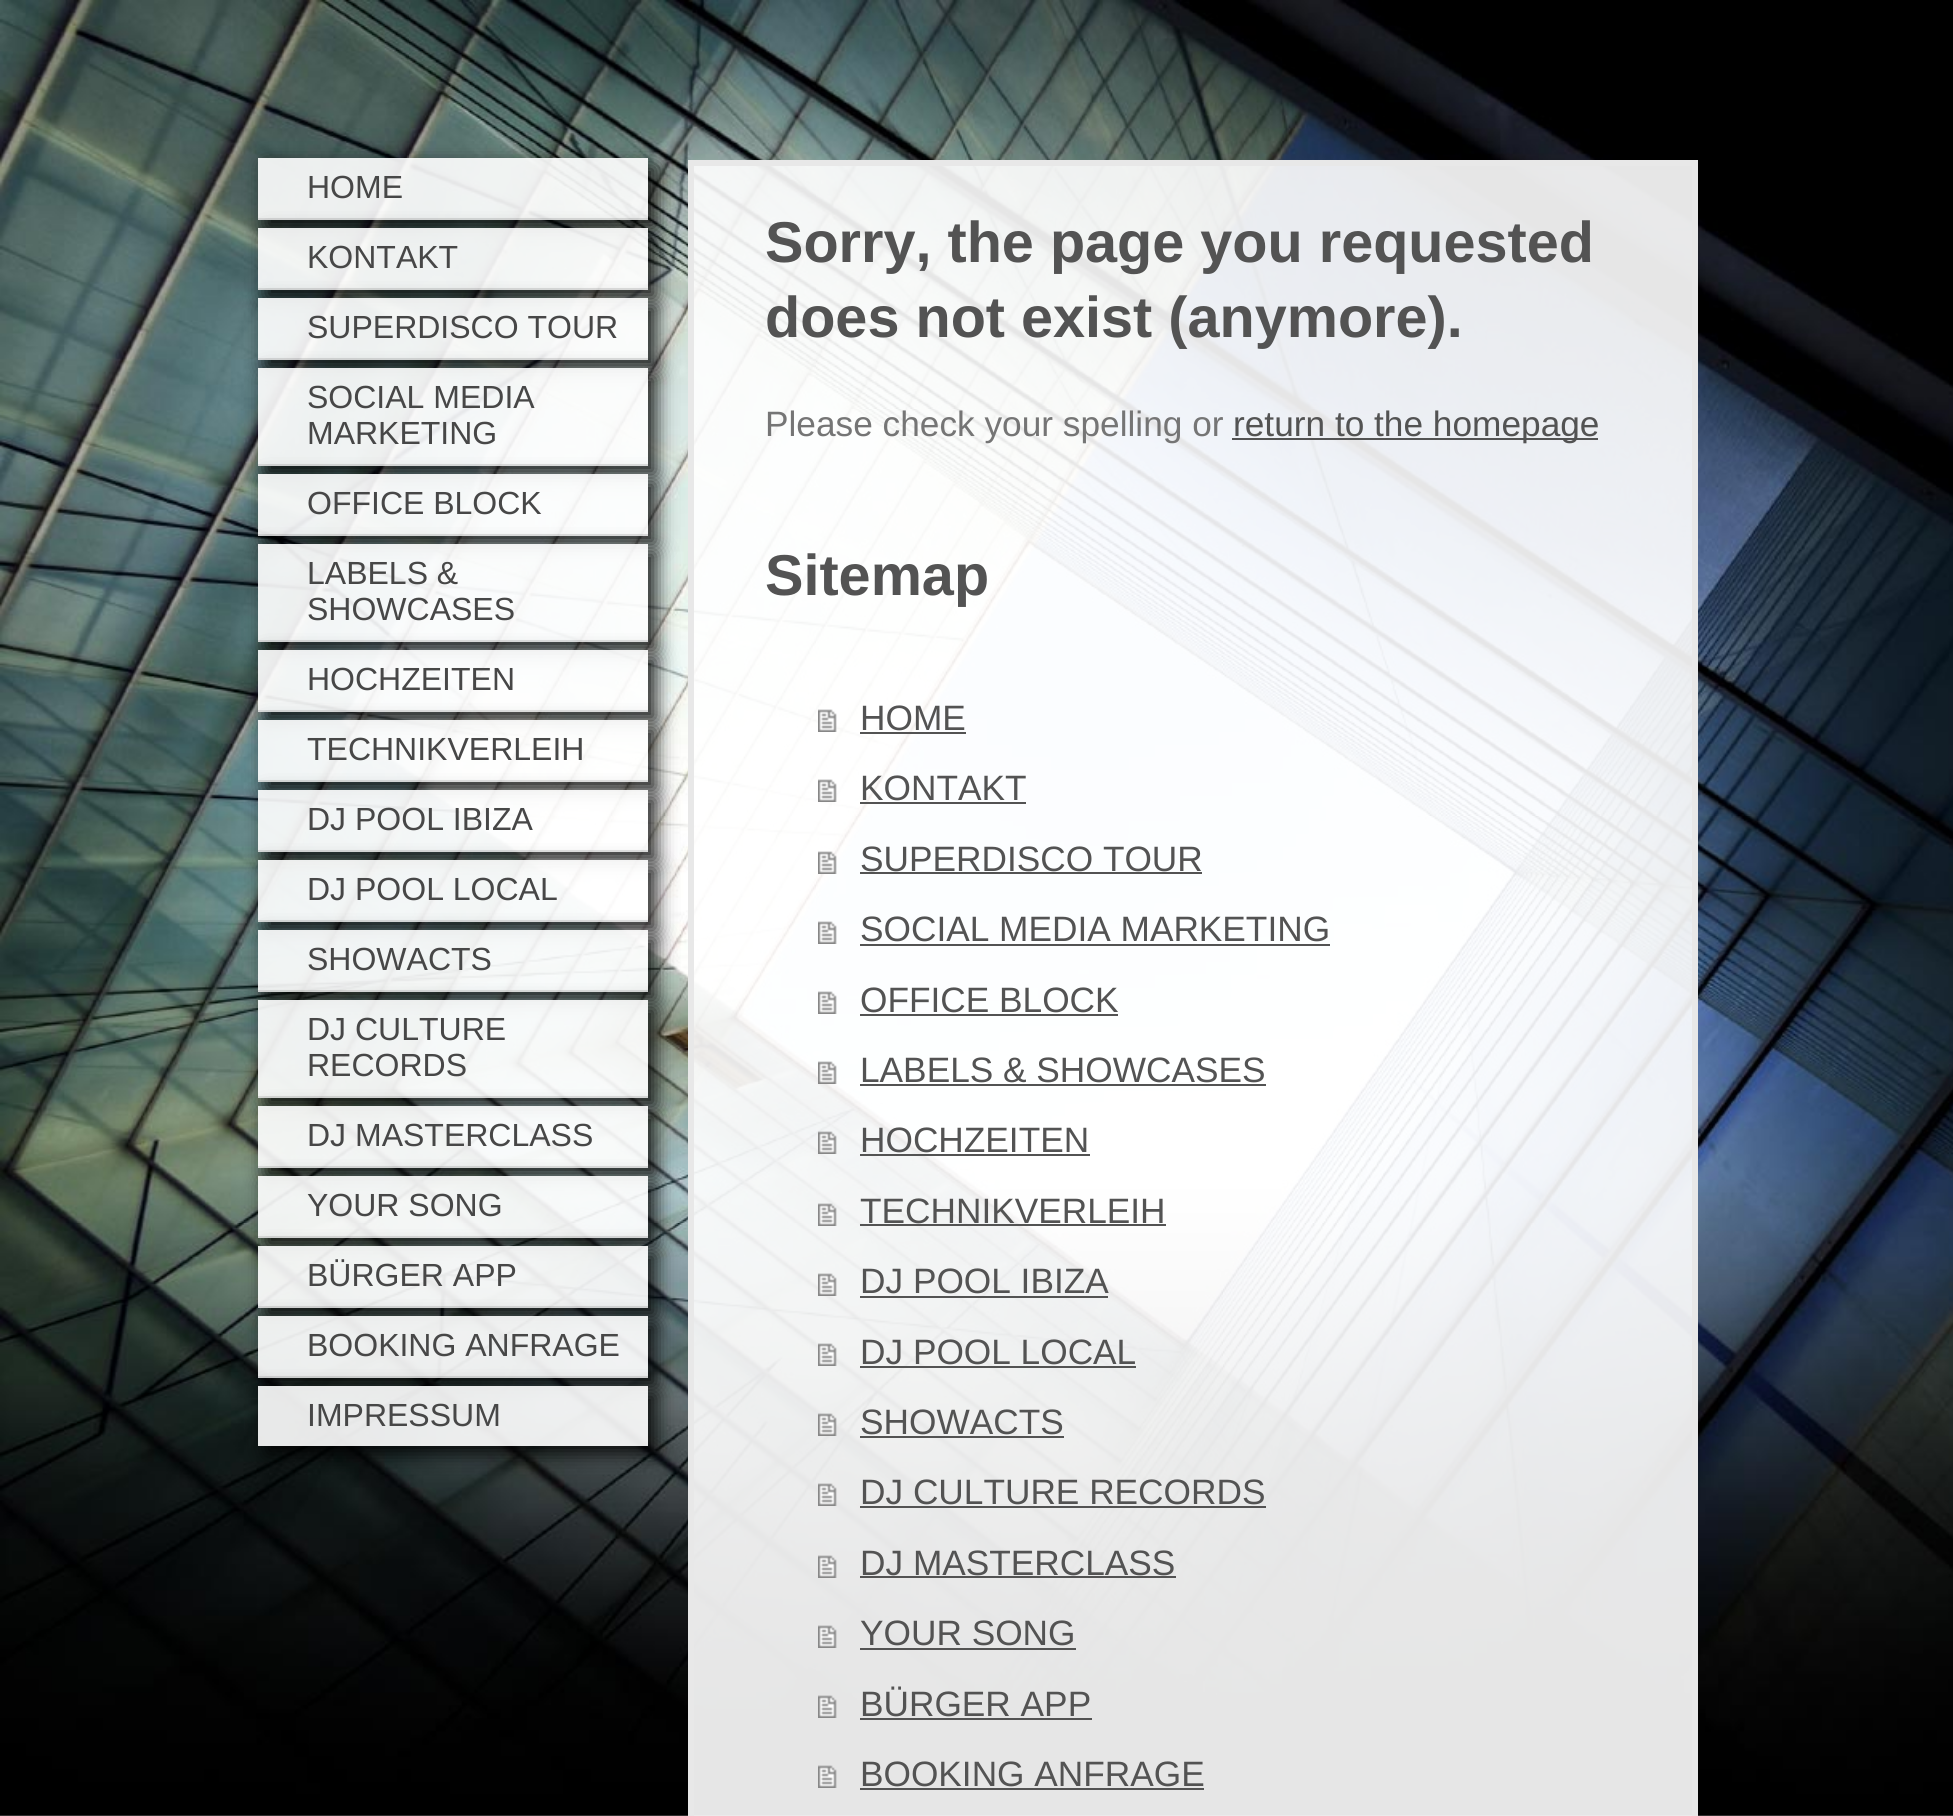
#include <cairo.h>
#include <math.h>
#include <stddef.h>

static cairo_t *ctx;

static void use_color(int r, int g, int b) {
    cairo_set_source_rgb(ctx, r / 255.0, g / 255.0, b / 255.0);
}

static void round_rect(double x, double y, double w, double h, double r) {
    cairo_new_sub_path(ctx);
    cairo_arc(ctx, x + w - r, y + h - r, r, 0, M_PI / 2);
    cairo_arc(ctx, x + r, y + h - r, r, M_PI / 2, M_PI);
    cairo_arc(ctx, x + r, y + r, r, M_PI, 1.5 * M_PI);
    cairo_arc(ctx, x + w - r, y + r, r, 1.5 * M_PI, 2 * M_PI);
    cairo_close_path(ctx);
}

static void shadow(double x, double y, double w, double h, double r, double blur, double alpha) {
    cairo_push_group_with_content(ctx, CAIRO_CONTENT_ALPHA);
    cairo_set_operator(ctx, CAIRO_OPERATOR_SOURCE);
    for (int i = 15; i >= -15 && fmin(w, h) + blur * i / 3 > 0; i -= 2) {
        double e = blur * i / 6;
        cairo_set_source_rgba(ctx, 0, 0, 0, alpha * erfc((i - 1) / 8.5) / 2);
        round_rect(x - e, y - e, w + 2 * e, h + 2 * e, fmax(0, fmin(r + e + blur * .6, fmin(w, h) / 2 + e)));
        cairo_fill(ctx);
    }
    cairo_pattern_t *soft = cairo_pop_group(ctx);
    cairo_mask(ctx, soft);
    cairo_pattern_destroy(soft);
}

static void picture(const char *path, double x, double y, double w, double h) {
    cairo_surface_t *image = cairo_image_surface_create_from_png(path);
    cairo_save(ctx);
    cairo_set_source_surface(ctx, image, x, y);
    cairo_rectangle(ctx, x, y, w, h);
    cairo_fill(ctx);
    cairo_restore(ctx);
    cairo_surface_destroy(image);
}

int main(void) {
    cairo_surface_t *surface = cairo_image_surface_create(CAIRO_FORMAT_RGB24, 1953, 1816);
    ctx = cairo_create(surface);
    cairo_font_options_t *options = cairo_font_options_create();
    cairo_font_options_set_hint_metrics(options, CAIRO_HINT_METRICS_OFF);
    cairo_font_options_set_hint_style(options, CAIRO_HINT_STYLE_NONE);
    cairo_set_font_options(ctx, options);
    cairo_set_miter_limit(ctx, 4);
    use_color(255, 255, 255);
    cairo_paint(ctx);
    picture("img1.png", 0, 0, 1953, 1816);
    cairo_save(ctx);
    cairo_set_fill_rule(ctx, CAIRO_FILL_RULE_EVEN_ODD);
    cairo_new_path(ctx);
    cairo_move_to(ctx, 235, 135);
    cairo_line_to(ctx, 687, 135);
    cairo_line_to(ctx, 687, 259);
    cairo_line_to(ctx, 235, 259);
    cairo_close_path(ctx);
    cairo_move_to(ctx, 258, 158);
    cairo_line_to(ctx, 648, 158);
    cairo_line_to(ctx, 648, 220);
    cairo_line_to(ctx, 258, 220);
    cairo_close_path(ctx);
    cairo_clip(ctx);
    use_color(0, 0, 0);
    shadow(266, 166, 390, 62, 0, 10, 0.9);
    cairo_restore(ctx);
    cairo_set_source_rgba(ctx, 1, 1, 1, 0.9);
    cairo_rectangle(ctx, 258, 158, 390, 62);
    cairo_fill(ctx);
    cairo_set_source_rgba(ctx, 0, 0, 0, 0.1);
    cairo_rectangle(ctx, 258, 218, 390, 2);
    cairo_fill(ctx);
    cairo_select_font_face(ctx, "Liberation Sans", CAIRO_FONT_SLANT_NORMAL, CAIRO_FONT_WEIGHT_NORMAL);
    cairo_set_font_size(ctx, 32);
    use_color(71, 71, 71);
    cairo_move_to(ctx, 307, 198);
    cairo_show_text(ctx, "HOME");
    cairo_save(ctx);
    cairo_set_fill_rule(ctx, CAIRO_FILL_RULE_EVEN_ODD);
    cairo_new_path(ctx);
    cairo_move_to(ctx, 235, 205);
    cairo_line_to(ctx, 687, 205);
    cairo_line_to(ctx, 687, 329);
    cairo_line_to(ctx, 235, 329);
    cairo_close_path(ctx);
    cairo_move_to(ctx, 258, 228);
    cairo_line_to(ctx, 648, 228);
    cairo_line_to(ctx, 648, 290);
    cairo_line_to(ctx, 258, 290);
    cairo_close_path(ctx);
    cairo_clip(ctx);
    use_color(0, 0, 0);
    shadow(266, 236, 390, 62, 0, 10, 0.9);
    cairo_restore(ctx);
    cairo_set_source_rgba(ctx, 1, 1, 1, 0.9);
    cairo_rectangle(ctx, 258, 228, 390, 62);
    cairo_fill(ctx);
    cairo_set_source_rgba(ctx, 0, 0, 0, 0.1);
    cairo_rectangle(ctx, 258, 288, 390, 2);
    cairo_fill(ctx);
    use_color(71, 71, 71);
    cairo_move_to(ctx, 307, 268);
    cairo_show_text(ctx, "KONTAKT");
    cairo_save(ctx);
    cairo_set_fill_rule(ctx, CAIRO_FILL_RULE_EVEN_ODD);
    cairo_new_path(ctx);
    cairo_move_to(ctx, 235, 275);
    cairo_line_to(ctx, 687, 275);
    cairo_line_to(ctx, 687, 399);
    cairo_line_to(ctx, 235, 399);
    cairo_close_path(ctx);
    cairo_move_to(ctx, 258, 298);
    cairo_line_to(ctx, 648, 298);
    cairo_line_to(ctx, 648, 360);
    cairo_line_to(ctx, 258, 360);
    cairo_close_path(ctx);
    cairo_clip(ctx);
    use_color(0, 0, 0);
    shadow(266, 306, 390, 62, 0, 10, 0.9);
    cairo_restore(ctx);
    cairo_set_source_rgba(ctx, 1, 1, 1, 0.9);
    cairo_rectangle(ctx, 258, 298, 390, 62);
    cairo_fill(ctx);
    cairo_set_source_rgba(ctx, 0, 0, 0, 0.1);
    cairo_rectangle(ctx, 258, 358, 390, 2);
    cairo_fill(ctx);
    use_color(71, 71, 71);
    cairo_move_to(ctx, 307, 338);
    cairo_show_text(ctx, "SUPERDISCO TOUR");
    cairo_save(ctx);
    cairo_set_fill_rule(ctx, CAIRO_FILL_RULE_EVEN_ODD);
    cairo_new_path(ctx);
    cairo_move_to(ctx, 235, 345);
    cairo_line_to(ctx, 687, 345);
    cairo_line_to(ctx, 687, 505);
    cairo_line_to(ctx, 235, 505);
    cairo_close_path(ctx);
    cairo_move_to(ctx, 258, 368);
    cairo_line_to(ctx, 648, 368);
    cairo_line_to(ctx, 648, 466);
    cairo_line_to(ctx, 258, 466);
    cairo_close_path(ctx);
    cairo_clip(ctx);
    use_color(0, 0, 0);
    shadow(266, 376, 390, 98, 0, 10, 0.9);
    cairo_restore(ctx);
    cairo_set_source_rgba(ctx, 1, 1, 1, 0.9);
    cairo_rectangle(ctx, 258, 368, 390, 98);
    cairo_fill(ctx);
    cairo_set_source_rgba(ctx, 0, 0, 0, 0.1);
    cairo_rectangle(ctx, 258, 464, 390, 2);
    cairo_fill(ctx);
    use_color(71, 71, 71);
    cairo_move_to(ctx, 307, 408);
    cairo_show_text(ctx, "SOCIAL MEDIA");
    cairo_move_to(ctx, 307, 444);
    cairo_show_text(ctx, "MARKETING");
    cairo_save(ctx);
    cairo_set_fill_rule(ctx, CAIRO_FILL_RULE_EVEN_ODD);
    cairo_new_path(ctx);
    cairo_move_to(ctx, 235, 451);
    cairo_line_to(ctx, 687, 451);
    cairo_line_to(ctx, 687, 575);
    cairo_line_to(ctx, 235, 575);
    cairo_close_path(ctx);
    cairo_move_to(ctx, 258, 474);
    cairo_line_to(ctx, 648, 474);
    cairo_line_to(ctx, 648, 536);
    cairo_line_to(ctx, 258, 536);
    cairo_close_path(ctx);
    cairo_clip(ctx);
    use_color(0, 0, 0);
    shadow(266, 482, 390, 62, 0, 10, 0.9);
    cairo_restore(ctx);
    cairo_set_source_rgba(ctx, 1, 1, 1, 0.9);
    cairo_rectangle(ctx, 258, 474, 390, 62);
    cairo_fill(ctx);
    cairo_set_source_rgba(ctx, 0, 0, 0, 0.1);
    cairo_rectangle(ctx, 258, 534, 390, 2);
    cairo_fill(ctx);
    use_color(71, 71, 71);
    cairo_move_to(ctx, 307, 514);
    cairo_show_text(ctx, "OFFICE BLOCK");
    cairo_save(ctx);
    cairo_set_fill_rule(ctx, CAIRO_FILL_RULE_EVEN_ODD);
    cairo_new_path(ctx);
    cairo_move_to(ctx, 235, 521);
    cairo_line_to(ctx, 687, 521);
    cairo_line_to(ctx, 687, 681);
    cairo_line_to(ctx, 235, 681);
    cairo_close_path(ctx);
    cairo_move_to(ctx, 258, 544);
    cairo_line_to(ctx, 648, 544);
    cairo_line_to(ctx, 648, 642);
    cairo_line_to(ctx, 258, 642);
    cairo_close_path(ctx);
    cairo_clip(ctx);
    use_color(0, 0, 0);
    shadow(266, 552, 390, 98, 0, 10, 0.9);
    cairo_restore(ctx);
    cairo_set_source_rgba(ctx, 1, 1, 1, 0.9);
    cairo_rectangle(ctx, 258, 544, 390, 98);
    cairo_fill(ctx);
    cairo_set_source_rgba(ctx, 0, 0, 0, 0.1);
    cairo_rectangle(ctx, 258, 640, 390, 2);
    cairo_fill(ctx);
    use_color(71, 71, 71);
    cairo_move_to(ctx, 307, 584);
    cairo_show_text(ctx, "LABELS &");
    cairo_move_to(ctx, 307, 620);
    cairo_show_text(ctx, "SHOWCASES");
    cairo_save(ctx);
    cairo_set_fill_rule(ctx, CAIRO_FILL_RULE_EVEN_ODD);
    cairo_new_path(ctx);
    cairo_move_to(ctx, 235, 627);
    cairo_line_to(ctx, 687, 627);
    cairo_line_to(ctx, 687, 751);
    cairo_line_to(ctx, 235, 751);
    cairo_close_path(ctx);
    cairo_move_to(ctx, 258, 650);
    cairo_line_to(ctx, 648, 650);
    cairo_line_to(ctx, 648, 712);
    cairo_line_to(ctx, 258, 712);
    cairo_close_path(ctx);
    cairo_clip(ctx);
    use_color(0, 0, 0);
    shadow(266, 658, 390, 62, 0, 10, 0.9);
    cairo_restore(ctx);
    cairo_set_source_rgba(ctx, 1, 1, 1, 0.9);
    cairo_rectangle(ctx, 258, 650, 390, 62);
    cairo_fill(ctx);
    cairo_set_source_rgba(ctx, 0, 0, 0, 0.1);
    cairo_rectangle(ctx, 258, 710, 390, 2);
    cairo_fill(ctx);
    use_color(71, 71, 71);
    cairo_move_to(ctx, 307, 690);
    cairo_show_text(ctx, "HOCHZEITEN");
    cairo_save(ctx);
    cairo_set_fill_rule(ctx, CAIRO_FILL_RULE_EVEN_ODD);
    cairo_new_path(ctx);
    cairo_move_to(ctx, 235, 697);
    cairo_line_to(ctx, 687, 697);
    cairo_line_to(ctx, 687, 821);
    cairo_line_to(ctx, 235, 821);
    cairo_close_path(ctx);
    cairo_move_to(ctx, 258, 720);
    cairo_line_to(ctx, 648, 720);
    cairo_line_to(ctx, 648, 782);
    cairo_line_to(ctx, 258, 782);
    cairo_close_path(ctx);
    cairo_clip(ctx);
    use_color(0, 0, 0);
    shadow(266, 728, 390, 62, 0, 10, 0.9);
    cairo_restore(ctx);
    cairo_set_source_rgba(ctx, 1, 1, 1, 0.9);
    cairo_rectangle(ctx, 258, 720, 390, 62);
    cairo_fill(ctx);
    cairo_set_source_rgba(ctx, 0, 0, 0, 0.1);
    cairo_rectangle(ctx, 258, 780, 390, 2);
    cairo_fill(ctx);
    use_color(71, 71, 71);
    cairo_move_to(ctx, 307, 760);
    cairo_show_text(ctx, "TECHNIKVERLEIH");
    cairo_save(ctx);
    cairo_set_fill_rule(ctx, CAIRO_FILL_RULE_EVEN_ODD);
    cairo_new_path(ctx);
    cairo_move_to(ctx, 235, 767);
    cairo_line_to(ctx, 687, 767);
    cairo_line_to(ctx, 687, 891);
    cairo_line_to(ctx, 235, 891);
    cairo_close_path(ctx);
    cairo_move_to(ctx, 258, 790);
    cairo_line_to(ctx, 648, 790);
    cairo_line_to(ctx, 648, 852);
    cairo_line_to(ctx, 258, 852);
    cairo_close_path(ctx);
    cairo_clip(ctx);
    use_color(0, 0, 0);
    shadow(266, 798, 390, 62, 0, 10, 0.9);
    cairo_restore(ctx);
    cairo_set_source_rgba(ctx, 1, 1, 1, 0.9);
    cairo_rectangle(ctx, 258, 790, 390, 62);
    cairo_fill(ctx);
    cairo_set_source_rgba(ctx, 0, 0, 0, 0.1);
    cairo_rectangle(ctx, 258, 850, 390, 2);
    cairo_fill(ctx);
    use_color(71, 71, 71);
    cairo_move_to(ctx, 307, 830);
    cairo_show_text(ctx, "DJ POOL IBIZA");
    cairo_save(ctx);
    cairo_set_fill_rule(ctx, CAIRO_FILL_RULE_EVEN_ODD);
    cairo_new_path(ctx);
    cairo_move_to(ctx, 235, 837);
    cairo_line_to(ctx, 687, 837);
    cairo_line_to(ctx, 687, 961);
    cairo_line_to(ctx, 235, 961);
    cairo_close_path(ctx);
    cairo_move_to(ctx, 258, 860);
    cairo_line_to(ctx, 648, 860);
    cairo_line_to(ctx, 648, 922);
    cairo_line_to(ctx, 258, 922);
    cairo_close_path(ctx);
    cairo_clip(ctx);
    use_color(0, 0, 0);
    shadow(266, 868, 390, 62, 0, 10, 0.9);
    cairo_restore(ctx);
    cairo_set_source_rgba(ctx, 1, 1, 1, 0.9);
    cairo_rectangle(ctx, 258, 860, 390, 62);
    cairo_fill(ctx);
    cairo_set_source_rgba(ctx, 0, 0, 0, 0.1);
    cairo_rectangle(ctx, 258, 920, 390, 2);
    cairo_fill(ctx);
    use_color(71, 71, 71);
    cairo_move_to(ctx, 307, 900);
    cairo_show_text(ctx, "DJ POOL LOCAL");
    cairo_save(ctx);
    cairo_set_fill_rule(ctx, CAIRO_FILL_RULE_EVEN_ODD);
    cairo_new_path(ctx);
    cairo_move_to(ctx, 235, 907);
    cairo_line_to(ctx, 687, 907);
    cairo_line_to(ctx, 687, 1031);
    cairo_line_to(ctx, 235, 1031);
    cairo_close_path(ctx);
    cairo_move_to(ctx, 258, 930);
    cairo_line_to(ctx, 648, 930);
    cairo_line_to(ctx, 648, 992);
    cairo_line_to(ctx, 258, 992);
    cairo_close_path(ctx);
    cairo_clip(ctx);
    use_color(0, 0, 0);
    shadow(266, 938, 390, 62, 0, 10, 0.9);
    cairo_restore(ctx);
    cairo_set_source_rgba(ctx, 1, 1, 1, 0.9);
    cairo_rectangle(ctx, 258, 930, 390, 62);
    cairo_fill(ctx);
    cairo_set_source_rgba(ctx, 0, 0, 0, 0.1);
    cairo_rectangle(ctx, 258, 990, 390, 2);
    cairo_fill(ctx);
    use_color(71, 71, 71);
    cairo_move_to(ctx, 307, 970);
    cairo_show_text(ctx, "SHOWACTS");
    cairo_save(ctx);
    cairo_set_fill_rule(ctx, CAIRO_FILL_RULE_EVEN_ODD);
    cairo_new_path(ctx);
    cairo_move_to(ctx, 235, 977);
    cairo_line_to(ctx, 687, 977);
    cairo_line_to(ctx, 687, 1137);
    cairo_line_to(ctx, 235, 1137);
    cairo_close_path(ctx);
    cairo_move_to(ctx, 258, 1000);
    cairo_line_to(ctx, 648, 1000);
    cairo_line_to(ctx, 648, 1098);
    cairo_line_to(ctx, 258, 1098);
    cairo_close_path(ctx);
    cairo_clip(ctx);
    use_color(0, 0, 0);
    shadow(266, 1008, 390, 98, 0, 10, 0.9);
    cairo_restore(ctx);
    cairo_set_source_rgba(ctx, 1, 1, 1, 0.9);
    cairo_rectangle(ctx, 258, 1000, 390, 98);
    cairo_fill(ctx);
    cairo_set_source_rgba(ctx, 0, 0, 0, 0.1);
    cairo_rectangle(ctx, 258, 1096, 390, 2);
    cairo_fill(ctx);
    use_color(71, 71, 71);
    cairo_move_to(ctx, 307, 1040);
    cairo_show_text(ctx, "DJ CULTURE");
    cairo_move_to(ctx, 307, 1076);
    cairo_show_text(ctx, "RECORDS");
    cairo_save(ctx);
    cairo_set_fill_rule(ctx, CAIRO_FILL_RULE_EVEN_ODD);
    cairo_new_path(ctx);
    cairo_move_to(ctx, 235, 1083);
    cairo_line_to(ctx, 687, 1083);
    cairo_line_to(ctx, 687, 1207);
    cairo_line_to(ctx, 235, 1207);
    cairo_close_path(ctx);
    cairo_move_to(ctx, 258, 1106);
    cairo_line_to(ctx, 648, 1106);
    cairo_line_to(ctx, 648, 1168);
    cairo_line_to(ctx, 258, 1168);
    cairo_close_path(ctx);
    cairo_clip(ctx);
    use_color(0, 0, 0);
    shadow(266, 1114, 390, 62, 0, 10, 0.9);
    cairo_restore(ctx);
    cairo_set_source_rgba(ctx, 1, 1, 1, 0.9);
    cairo_rectangle(ctx, 258, 1106, 390, 62);
    cairo_fill(ctx);
    cairo_set_source_rgba(ctx, 0, 0, 0, 0.1);
    cairo_rectangle(ctx, 258, 1166, 390, 2);
    cairo_fill(ctx);
    use_color(71, 71, 71);
    cairo_move_to(ctx, 307, 1146);
    cairo_show_text(ctx, "DJ MASTERCLASS");
    cairo_save(ctx);
    cairo_set_fill_rule(ctx, CAIRO_FILL_RULE_EVEN_ODD);
    cairo_new_path(ctx);
    cairo_move_to(ctx, 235, 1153);
    cairo_line_to(ctx, 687, 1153);
    cairo_line_to(ctx, 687, 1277);
    cairo_line_to(ctx, 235, 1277);
    cairo_close_path(ctx);
    cairo_move_to(ctx, 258, 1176);
    cairo_line_to(ctx, 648, 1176);
    cairo_line_to(ctx, 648, 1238);
    cairo_line_to(ctx, 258, 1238);
    cairo_close_path(ctx);
    cairo_clip(ctx);
    use_color(0, 0, 0);
    shadow(266, 1184, 390, 62, 0, 10, 0.9);
    cairo_restore(ctx);
    cairo_set_source_rgba(ctx, 1, 1, 1, 0.9);
    cairo_rectangle(ctx, 258, 1176, 390, 62);
    cairo_fill(ctx);
    cairo_set_source_rgba(ctx, 0, 0, 0, 0.1);
    cairo_rectangle(ctx, 258, 1236, 390, 2);
    cairo_fill(ctx);
    use_color(71, 71, 71);
    cairo_move_to(ctx, 307, 1216);
    cairo_show_text(ctx, "YOUR SONG");
    cairo_save(ctx);
    cairo_set_fill_rule(ctx, CAIRO_FILL_RULE_EVEN_ODD);
    cairo_new_path(ctx);
    cairo_move_to(ctx, 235, 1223);
    cairo_line_to(ctx, 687, 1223);
    cairo_line_to(ctx, 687, 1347);
    cairo_line_to(ctx, 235, 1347);
    cairo_close_path(ctx);
    cairo_move_to(ctx, 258, 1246);
    cairo_line_to(ctx, 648, 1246);
    cairo_line_to(ctx, 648, 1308);
    cairo_line_to(ctx, 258, 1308);
    cairo_close_path(ctx);
    cairo_clip(ctx);
    use_color(0, 0, 0);
    shadow(266, 1254, 390, 62, 0, 10, 0.9);
    cairo_restore(ctx);
    cairo_set_source_rgba(ctx, 1, 1, 1, 0.9);
    cairo_rectangle(ctx, 258, 1246, 390, 62);
    cairo_fill(ctx);
    cairo_set_source_rgba(ctx, 0, 0, 0, 0.1);
    cairo_rectangle(ctx, 258, 1306, 390, 2);
    cairo_fill(ctx);
    use_color(71, 71, 71);
    cairo_move_to(ctx, 307, 1286);
    cairo_show_text(ctx, "BÜRGER APP");
    cairo_save(ctx);
    cairo_set_fill_rule(ctx, CAIRO_FILL_RULE_EVEN_ODD);
    cairo_new_path(ctx);
    cairo_move_to(ctx, 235, 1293);
    cairo_line_to(ctx, 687, 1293);
    cairo_line_to(ctx, 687, 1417);
    cairo_line_to(ctx, 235, 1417);
    cairo_close_path(ctx);
    cairo_move_to(ctx, 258, 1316);
    cairo_line_to(ctx, 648, 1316);
    cairo_line_to(ctx, 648, 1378);
    cairo_line_to(ctx, 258, 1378);
    cairo_close_path(ctx);
    cairo_clip(ctx);
    use_color(0, 0, 0);
    shadow(266, 1324, 390, 62, 0, 10, 0.9);
    cairo_restore(ctx);
    cairo_set_source_rgba(ctx, 1, 1, 1, 0.9);
    cairo_rectangle(ctx, 258, 1316, 390, 62);
    cairo_fill(ctx);
    cairo_set_source_rgba(ctx, 0, 0, 0, 0.1);
    cairo_rectangle(ctx, 258, 1376, 390, 2);
    cairo_fill(ctx);
    use_color(71, 71, 71);
    cairo_move_to(ctx, 307, 1356);
    cairo_show_text(ctx, "BOOKING ANFRAGE");
    cairo_save(ctx);
    cairo_set_fill_rule(ctx, CAIRO_FILL_RULE_EVEN_ODD);
    cairo_new_path(ctx);
    cairo_move_to(ctx, 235, 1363);
    cairo_line_to(ctx, 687, 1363);
    cairo_line_to(ctx, 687, 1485);
    cairo_line_to(ctx, 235, 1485);
    cairo_close_path(ctx);
    cairo_move_to(ctx, 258, 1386);
    cairo_line_to(ctx, 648, 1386);
    cairo_line_to(ctx, 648, 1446);
    cairo_line_to(ctx, 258, 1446);
    cairo_close_path(ctx);
    cairo_clip(ctx);
    use_color(0, 0, 0);
    shadow(266, 1394, 390, 60, 0, 10, 0.9);
    cairo_restore(ctx);
    cairo_set_source_rgba(ctx, 1, 1, 1, 0.9);
    cairo_rectangle(ctx, 258, 1386, 390, 60);
    cairo_fill(ctx);
    use_color(71, 71, 71);
    cairo_move_to(ctx, 307, 1426);
    cairo_show_text(ctx, "IMPRESSUM");
    cairo_set_source_rgba(ctx, 1, 1, 1, 0.9);
    cairo_rectangle(ctx, 691, 163, 1004, 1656);
    cairo_fill_preserve(ctx);
    use_color(232, 232, 232);
    cairo_set_line_width(ctx, 6);
    cairo_stroke(ctx);
    cairo_select_font_face(ctx, "Liberation Sans", CAIRO_FONT_SLANT_NORMAL, CAIRO_FONT_WEIGHT_BOLD);
    cairo_set_font_size(ctx, 57.6);
    use_color(83, 83, 83);
    cairo_move_to(ctx, 765, 262);
    cairo_show_text(ctx, "Sorry, the page you requested");
    cairo_move_to(ctx, 765, 337);
    cairo_show_text(ctx, "does not exist (anymore).");
    cairo_select_font_face(ctx, "Liberation Sans", CAIRO_FONT_SLANT_NORMAL, CAIRO_FONT_WEIGHT_NORMAL);
    cairo_set_font_size(ctx, 35.25);
    use_color(117, 117, 117);
    cairo_move_to(ctx, 765, 436);
    cairo_show_text(ctx, "Please check your spelling or");
    use_color(83, 83, 83);
    cairo_rectangle(ctx, 1232, 438, 366, 2);
    cairo_fill(ctx);
    cairo_move_to(ctx, 1233, 436);
    cairo_show_text(ctx, "return to the homepage");
    cairo_select_font_face(ctx, "Liberation Sans", CAIRO_FONT_SLANT_NORMAL, CAIRO_FONT_WEIGHT_BOLD);
    cairo_set_font_size(ctx, 57.6);
    cairo_move_to(ctx, 765, 595);
    cairo_show_text(ctx, "Sitemap");
    picture("img2.png", 818, 709, 19, 23);
    cairo_select_font_face(ctx, "Liberation Sans", CAIRO_FONT_SLANT_NORMAL, CAIRO_FONT_WEIGHT_NORMAL);
    cairo_set_font_size(ctx, 35.25);
    cairo_move_to(ctx, 860, 730);
    cairo_show_text(ctx, "HOME");
    cairo_rectangle(ctx, 860, 732, 106, 2);
    cairo_fill(ctx);
    picture("img3.png", 818, 779, 19, 23);
    cairo_move_to(ctx, 860, 800);
    cairo_show_text(ctx, "KONTAKT");
    cairo_rectangle(ctx, 860, 802, 166, 2);
    cairo_fill(ctx);
    picture("img4.png", 818, 851, 19, 23);
    cairo_move_to(ctx, 860, 871);
    cairo_show_text(ctx, "SUPERDISCO TOUR");
    cairo_rectangle(ctx, 860, 872, 342, 2);
    cairo_fill(ctx);
    picture("img5.png", 818, 921, 19, 23);
    cairo_move_to(ctx, 860, 941);
    cairo_show_text(ctx, "SOCIAL MEDIA MARKETING");
    cairo_rectangle(ctx, 860, 944, 470, 2);
    cairo_fill(ctx);
    picture("img6.png", 818, 991, 19, 23);
    cairo_move_to(ctx, 860, 1012);
    cairo_show_text(ctx, "OFFICE BLOCK");
    cairo_rectangle(ctx, 860, 1014, 258, 2);
    cairo_fill(ctx);
    picture("img7.png", 818, 1061, 19, 23);
    cairo_move_to(ctx, 860, 1082);
    cairo_show_text(ctx, "LABELS & SHOWCASES");
    cairo_rectangle(ctx, 860, 1084, 406, 2);
    cairo_fill(ctx);
    picture("img8.png", 818, 1131, 19, 23);
    cairo_move_to(ctx, 860, 1152);
    cairo_show_text(ctx, "HOCHZEITEN");
    cairo_rectangle(ctx, 860, 1154, 230, 2);
    cairo_fill(ctx);
    picture("img9.png", 818, 1203, 19, 23);
    cairo_move_to(ctx, 860, 1223);
    cairo_show_text(ctx, "TECHNIKVERLEIH");
    cairo_rectangle(ctx, 860, 1224, 306, 2);
    cairo_fill(ctx);
    picture("img10.png", 818, 1273, 19, 23);
    cairo_move_to(ctx, 860, 1293);
    cairo_show_text(ctx, "DJ POOL IBIZA");
    cairo_rectangle(ctx, 860, 1296, 248, 2);
    cairo_fill(ctx);
    picture("img11.png", 818, 1343, 19, 23);
    cairo_move_to(ctx, 860, 1364);
    cairo_show_text(ctx, "DJ POOL LOCAL");
    cairo_rectangle(ctx, 860, 1366, 276, 2);
    cairo_fill(ctx);
    picture("img12.png", 818, 1413, 19, 23);
    cairo_move_to(ctx, 860, 1434);
    cairo_show_text(ctx, "SHOWACTS");
    cairo_rectangle(ctx, 860, 1436, 204, 2);
    cairo_fill(ctx);
    picture("img13.png", 818, 1483, 19, 23);
    cairo_move_to(ctx, 860, 1504);
    cairo_show_text(ctx, "DJ CULTURE RECORDS");
    cairo_rectangle(ctx, 860, 1506, 406, 2);
    cairo_fill(ctx);
    picture("img14.png", 818, 1555, 19, 23);
    cairo_move_to(ctx, 860, 1575);
    cairo_show_text(ctx, "DJ MASTERCLASS");
    cairo_rectangle(ctx, 860, 1576, 316, 2);
    cairo_fill(ctx);
    picture("img15.png", 818, 1625, 19, 23);
    cairo_move_to(ctx, 860, 1645);
    cairo_show_text(ctx, "YOUR SONG");
    cairo_rectangle(ctx, 860, 1648, 216, 2);
    cairo_fill(ctx);
    picture("img16.png", 818, 1695, 19, 23);
    cairo_move_to(ctx, 860, 1716);
    cairo_show_text(ctx, "BÜRGER APP");
    cairo_rectangle(ctx, 860, 1718, 232, 2);
    cairo_fill(ctx);
    picture("img16.png", 818, 1765, 19, 23);
    cairo_move_to(ctx, 860, 1786);
    cairo_show_text(ctx, "BOOKING ANFRAGE");
    cairo_rectangle(ctx, 860, 1788, 344, 2);
    cairo_fill(ctx);
    cairo_surface_write_to_png(surface, "result.png");
    cairo_font_options_destroy(options);
    cairo_destroy(ctx);
    cairo_surface_destroy(surface);
    return 0;
}
